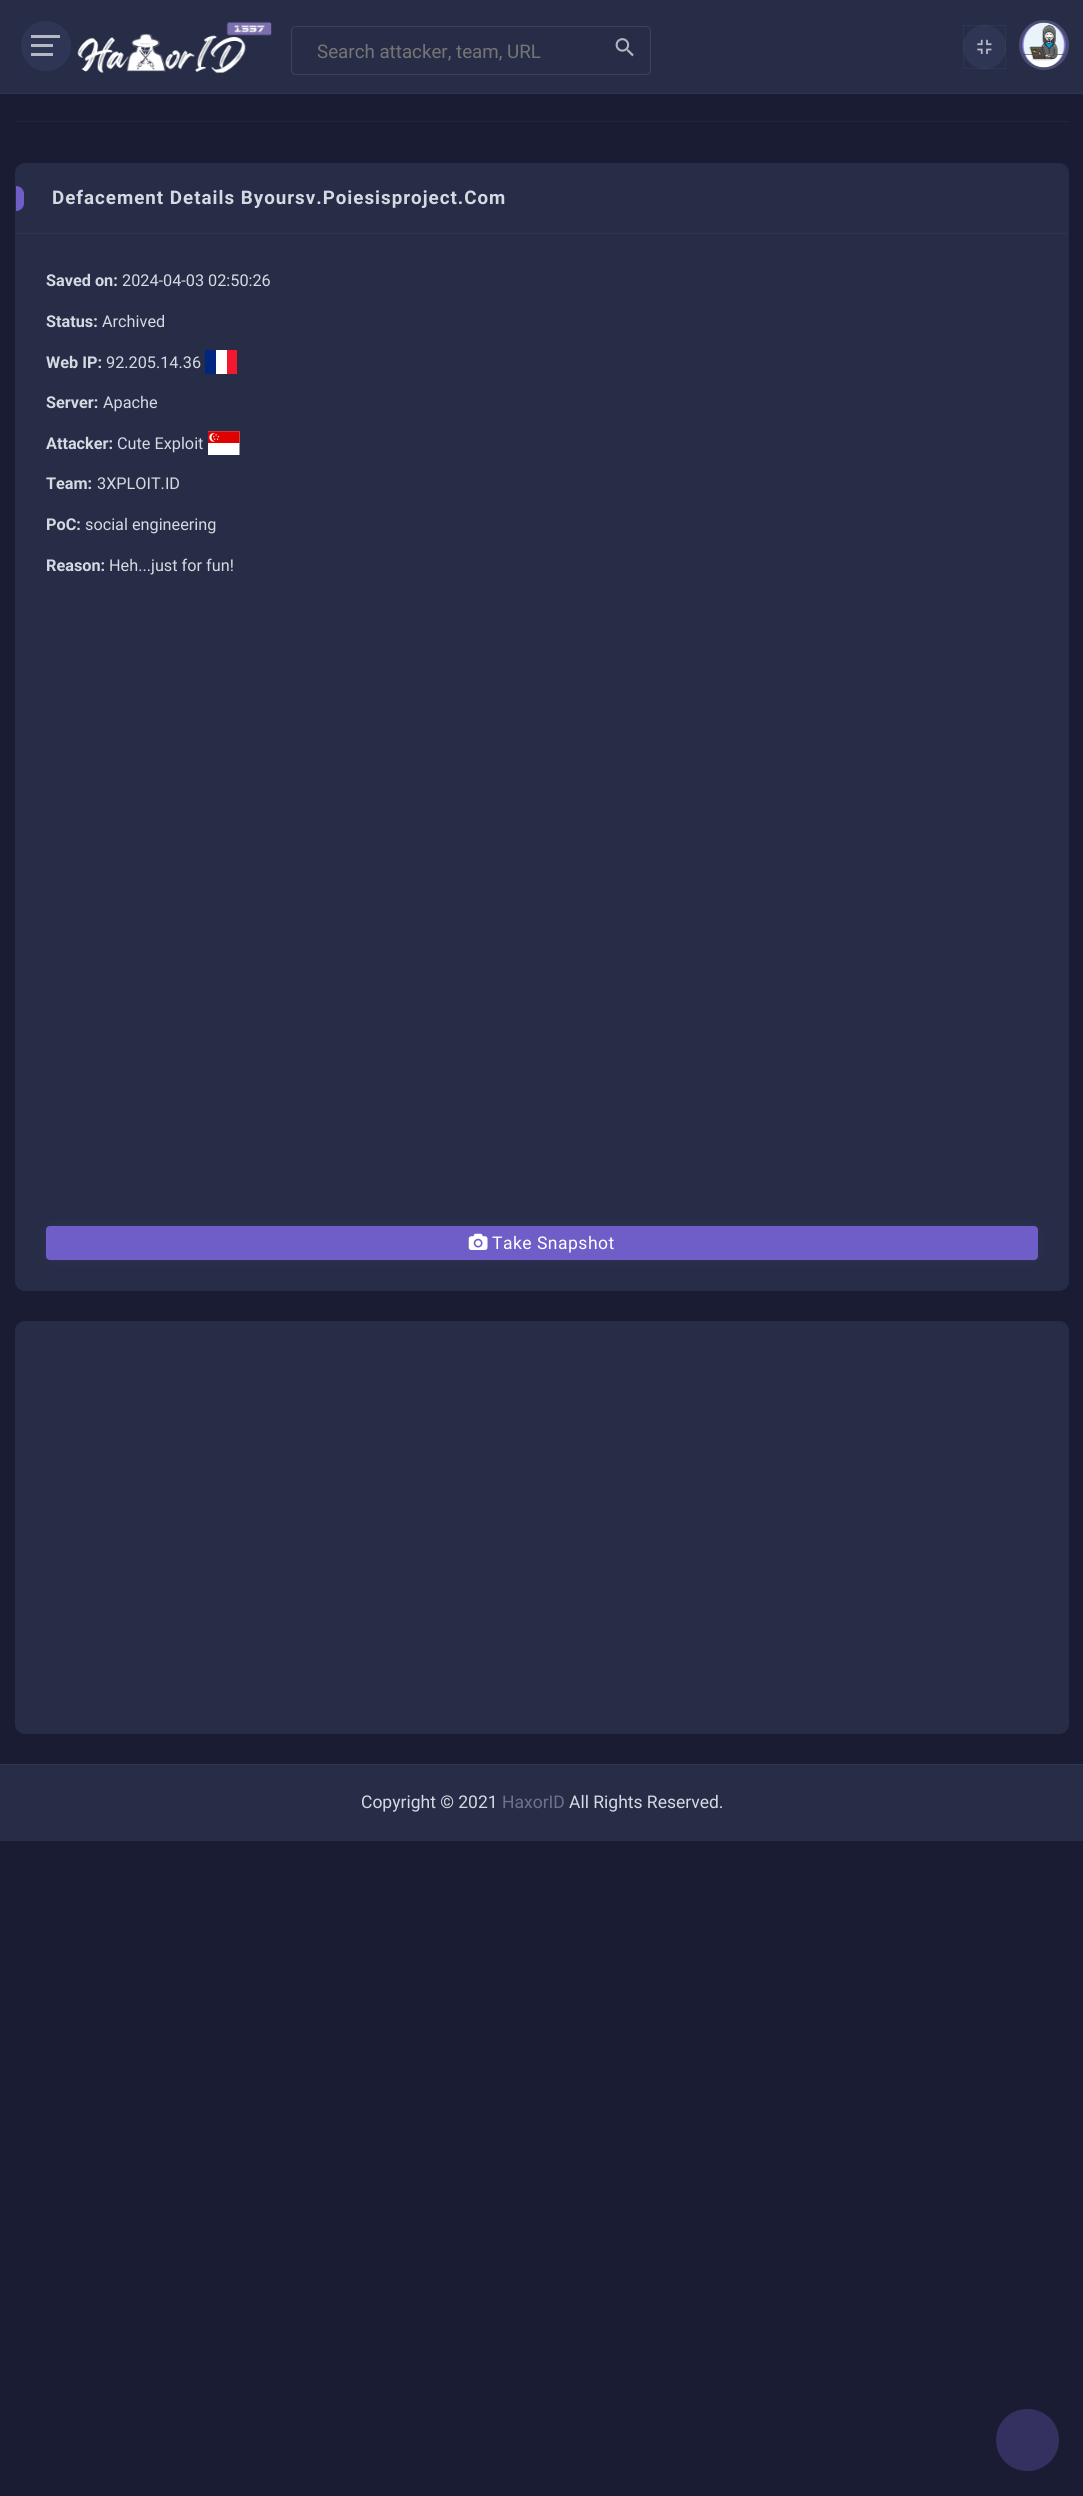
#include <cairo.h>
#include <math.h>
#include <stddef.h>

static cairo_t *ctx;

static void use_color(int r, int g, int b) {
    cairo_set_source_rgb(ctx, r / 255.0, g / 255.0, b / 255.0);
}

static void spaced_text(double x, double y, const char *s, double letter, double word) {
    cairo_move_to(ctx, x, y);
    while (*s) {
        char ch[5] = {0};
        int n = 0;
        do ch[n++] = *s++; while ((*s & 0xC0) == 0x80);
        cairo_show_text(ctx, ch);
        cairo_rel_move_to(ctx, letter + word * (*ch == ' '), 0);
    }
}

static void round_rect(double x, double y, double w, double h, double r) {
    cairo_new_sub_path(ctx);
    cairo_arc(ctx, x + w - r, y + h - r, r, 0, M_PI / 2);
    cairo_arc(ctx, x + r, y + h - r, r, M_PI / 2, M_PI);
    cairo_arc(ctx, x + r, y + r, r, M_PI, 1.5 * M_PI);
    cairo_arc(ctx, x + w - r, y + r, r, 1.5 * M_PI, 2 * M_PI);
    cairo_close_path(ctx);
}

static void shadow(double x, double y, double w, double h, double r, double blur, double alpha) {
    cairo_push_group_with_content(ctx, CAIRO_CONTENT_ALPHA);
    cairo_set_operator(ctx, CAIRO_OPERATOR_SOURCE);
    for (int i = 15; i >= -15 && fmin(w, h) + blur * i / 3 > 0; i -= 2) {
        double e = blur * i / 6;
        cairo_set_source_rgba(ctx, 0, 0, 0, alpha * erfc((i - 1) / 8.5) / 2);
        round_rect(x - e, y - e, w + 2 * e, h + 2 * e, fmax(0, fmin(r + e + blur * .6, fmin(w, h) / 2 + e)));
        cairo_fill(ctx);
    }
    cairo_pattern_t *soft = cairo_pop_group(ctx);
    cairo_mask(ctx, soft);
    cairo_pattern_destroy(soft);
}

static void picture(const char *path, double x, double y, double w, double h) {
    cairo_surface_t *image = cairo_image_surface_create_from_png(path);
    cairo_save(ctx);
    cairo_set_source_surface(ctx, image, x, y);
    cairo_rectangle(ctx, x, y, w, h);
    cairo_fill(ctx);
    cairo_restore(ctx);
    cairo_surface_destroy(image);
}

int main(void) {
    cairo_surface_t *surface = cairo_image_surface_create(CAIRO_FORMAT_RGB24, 1083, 2496);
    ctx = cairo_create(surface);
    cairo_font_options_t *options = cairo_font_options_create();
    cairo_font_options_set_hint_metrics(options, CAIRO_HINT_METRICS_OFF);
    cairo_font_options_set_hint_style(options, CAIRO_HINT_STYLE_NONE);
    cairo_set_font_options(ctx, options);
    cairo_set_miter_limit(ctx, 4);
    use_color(26, 28, 51);
    cairo_paint(ctx);
    use_color(39, 45, 71);
    cairo_rectangle(ctx, 0, 0, 1083, 93);
    cairo_fill(ctx);
    use_color(48, 53, 78);
    cairo_rectangle(ctx, 0, 93, 1083, 1);
    cairo_fill(ctx);
    use_color(47, 54, 85);
    cairo_arc(ctx, 46, 46, 25, 0, 2 * M_PI);
    cairo_fill(ctx);
    use_color(182, 185, 196);
    cairo_rectangle(ctx, 31, 44, 22, 3);
    cairo_fill(ctx);
    cairo_rectangle(ctx, 31, 35, 29, 3);
    cairo_fill(ctx);
    cairo_rectangle(ctx, 31, 53, 22, 3);
    cairo_fill(ctx);
    picture("img1.png", 77, 22, 195, 51);
    round_rect(291.5, 26.5, 359, 48, 4.5);
    use_color(61, 66, 89);
    cairo_set_line_width(ctx, 1);
    cairo_stroke(ctx);
    cairo_select_font_face(ctx, "Roboto", CAIRO_FONT_SLANT_NORMAL, CAIRO_FONT_WEIGHT_NORMAL);
    cairo_set_font_size(ctx, 18.75);
    use_color(117, 117, 117);
    cairo_move_to(ctx, 317, 58);
    cairo_show_text(ctx, "Search attacker, team, URL");
    picture("img2.png", 615, 38, 19, 19);
    use_color(47, 54, 85);
    round_rect(963, 25, 43, 44, 21.5);
    cairo_fill(ctx);
    cairo_rectangle(ctx, 963.5, 25.5, 42, 43);
    cairo_set_source_rgba(ctx, 1, 1, 1, 0.04);
    cairo_stroke(ctx);
    picture("img3.png", 977, 39, 15, 15);
    use_color(112, 94, 200);
    cairo_arc(ctx, 1044, 45, 23.5, 0, 2 * M_PI);
    cairo_fill_preserve(ctx);
    use_color(74, 77, 112);
    cairo_set_line_width(ctx, 3);
    cairo_stroke(ctx);
    picture("img4.png", 1022, 22, 43, 46);
    use_color(35, 37, 59);
    cairo_rectangle(ctx, 15, 121, 1054, 1);
    cairo_fill(ctx);
    use_color(39, 45, 71);
    round_rect(15, 163, 1054, 1128, 10);
    cairo_fill(ctx);
    use_color(48, 53, 78);
    cairo_rectangle(ctx, 16, 233, 1052, 1);
    cairo_fill(ctx);
    use_color(112, 94, 200);
    cairo_new_path(ctx);
    cairo_move_to(ctx, 16, 186);
    cairo_curve_to(ctx, 20.5, 186, 24, 189.5, 24, 194);
    cairo_line_to(ctx, 24, 203);
    cairo_curve_to(ctx, 24, 207.5, 20.5, 211, 16, 211);
    cairo_close_path(ctx);
    cairo_fill(ctx);
    cairo_select_font_face(ctx, "Roboto", CAIRO_FONT_SLANT_NORMAL, CAIRO_FONT_WEIGHT_BOLD);
    use_color(213, 218, 226);
    spaced_text(52, 204, "Defacement Details Byoursv.Poiesisproject.Com", 1, 0);
    cairo_set_font_size(ctx, 16.25);
    cairo_move_to(ctx, 46, 286);
    cairo_show_text(ctx, "Saved on:");
    cairo_select_font_face(ctx, "Roboto", CAIRO_FONT_SLANT_NORMAL, CAIRO_FONT_WEIGHT_NORMAL);
    cairo_move_to(ctx, 122, 286);
    cairo_show_text(ctx, "2024-04-03 02:50:26");
    cairo_select_font_face(ctx, "Roboto", CAIRO_FONT_SLANT_NORMAL, CAIRO_FONT_WEIGHT_BOLD);
    cairo_move_to(ctx, 46, 327);
    cairo_show_text(ctx, "Status:");
    cairo_select_font_face(ctx, "Roboto", CAIRO_FONT_SLANT_NORMAL, CAIRO_FONT_WEIGHT_NORMAL);
    cairo_move_to(ctx, 102, 327);
    cairo_show_text(ctx, "Archived");
    cairo_select_font_face(ctx, "Roboto", CAIRO_FONT_SLANT_NORMAL, CAIRO_FONT_WEIGHT_BOLD);
    cairo_move_to(ctx, 46, 368);
    cairo_show_text(ctx, "Web IP:");
    cairo_select_font_face(ctx, "Roboto", CAIRO_FONT_SLANT_NORMAL, CAIRO_FONT_WEIGHT_NORMAL);
    cairo_move_to(ctx, 106, 368);
    cairo_show_text(ctx, "92.205.14.36");
    use_color(255, 255, 255);
    cairo_rectangle(ctx, 216, 350, 11, 24);
    cairo_fill(ctx);
    use_color(0, 38, 127);
    cairo_rectangle(ctx, 205, 350, 11, 24);
    cairo_fill(ctx);
    use_color(243, 24, 48);
    cairo_rectangle(ctx, 227, 350, 10, 24);
    cairo_fill(ctx);
    cairo_select_font_face(ctx, "Roboto", CAIRO_FONT_SLANT_NORMAL, CAIRO_FONT_WEIGHT_BOLD);
    use_color(213, 218, 226);
    cairo_move_to(ctx, 46, 408);
    cairo_show_text(ctx, "Server:");
    cairo_select_font_face(ctx, "Roboto", CAIRO_FONT_SLANT_NORMAL, CAIRO_FONT_WEIGHT_NORMAL);
    cairo_move_to(ctx, 103, 408);
    cairo_show_text(ctx, "Apache");
    cairo_select_font_face(ctx, "Roboto", CAIRO_FONT_SLANT_NORMAL, CAIRO_FONT_WEIGHT_BOLD);
    cairo_move_to(ctx, 46, 449);
    cairo_show_text(ctx, "Attacker:");
    cairo_select_font_face(ctx, "Roboto", CAIRO_FONT_SLANT_NORMAL, CAIRO_FONT_WEIGHT_NORMAL);
    cairo_move_to(ctx, 117, 449);
    cairo_show_text(ctx, "Cute Exploit");
    picture("img5.png", 208, 431, 32, 24);
    cairo_select_font_face(ctx, "Roboto", CAIRO_FONT_SLANT_NORMAL, CAIRO_FONT_WEIGHT_BOLD);
    cairo_move_to(ctx, 46, 489);
    cairo_show_text(ctx, "Team:");
    cairo_select_font_face(ctx, "Roboto", CAIRO_FONT_SLANT_NORMAL, CAIRO_FONT_WEIGHT_NORMAL);
    cairo_move_to(ctx, 97, 489);
    cairo_show_text(ctx, "3XPLOIT.ID");
    cairo_select_font_face(ctx, "Roboto", CAIRO_FONT_SLANT_NORMAL, CAIRO_FONT_WEIGHT_BOLD);
    cairo_move_to(ctx, 46, 530);
    cairo_show_text(ctx, "PoC:");
    cairo_select_font_face(ctx, "Roboto", CAIRO_FONT_SLANT_NORMAL, CAIRO_FONT_WEIGHT_NORMAL);
    cairo_move_to(ctx, 85, 530);
    cairo_show_text(ctx, "social engineering");
    cairo_select_font_face(ctx, "Roboto", CAIRO_FONT_SLANT_NORMAL, CAIRO_FONT_WEIGHT_BOLD);
    cairo_move_to(ctx, 46, 571);
    cairo_show_text(ctx, "Reason:");
    cairo_select_font_face(ctx, "Roboto", CAIRO_FONT_SLANT_NORMAL, CAIRO_FONT_WEIGHT_NORMAL);
    cairo_move_to(ctx, 109, 571);
    cairo_show_text(ctx, "Heh...just for fun!");
    use_color(112, 94, 200);
    shadow(53, 1233, 978, 21, 0, 6, 0.5);
    use_color(112, 94, 200);
    round_rect(46.5, 1226.5, 991, 33, 3.5);
    cairo_fill_preserve(ctx);
    cairo_set_line_width(ctx, 1);
    cairo_stroke(ctx);
    picture("img6.png", 468, 1233, 20, 17);
    cairo_set_font_size(ctx, 17.5);
    use_color(255, 255, 255);
    spaced_text(492, 1249, "Take Snapshot", 0.5, 0);
    use_color(39, 45, 71);
    round_rect(15, 1321, 1054, 413, 10);
    cairo_fill(ctx);
    cairo_rectangle(ctx, 0, 1765, 1083, 76);
    cairo_fill(ctx);
    use_color(48, 53, 78);
    cairo_rectangle(ctx, 0, 1764, 1083, 1);
    cairo_fill(ctx);
    use_color(213, 218, 226);
    cairo_move_to(ctx, 361, 1808);
    cairo_show_text(ctx, "Copyright © 2021");
    use_color(110, 114, 137);
    cairo_move_to(ctx, 502, 1808);
    cairo_show_text(ctx, "HaxorID");
    use_color(213, 218, 226);
    cairo_move_to(ctx, 569, 1808);
    cairo_show_text(ctx, "All Rights Reserved.");
    use_color(52, 48, 95);
    round_rect(996, 2409, 63, 62, 31);
    cairo_fill(ctx);
    cairo_surface_write_to_png(surface, "result.png");
    cairo_font_options_destroy(options);
    cairo_destroy(ctx);
    cairo_surface_destroy(surface);
    return 0;
}
